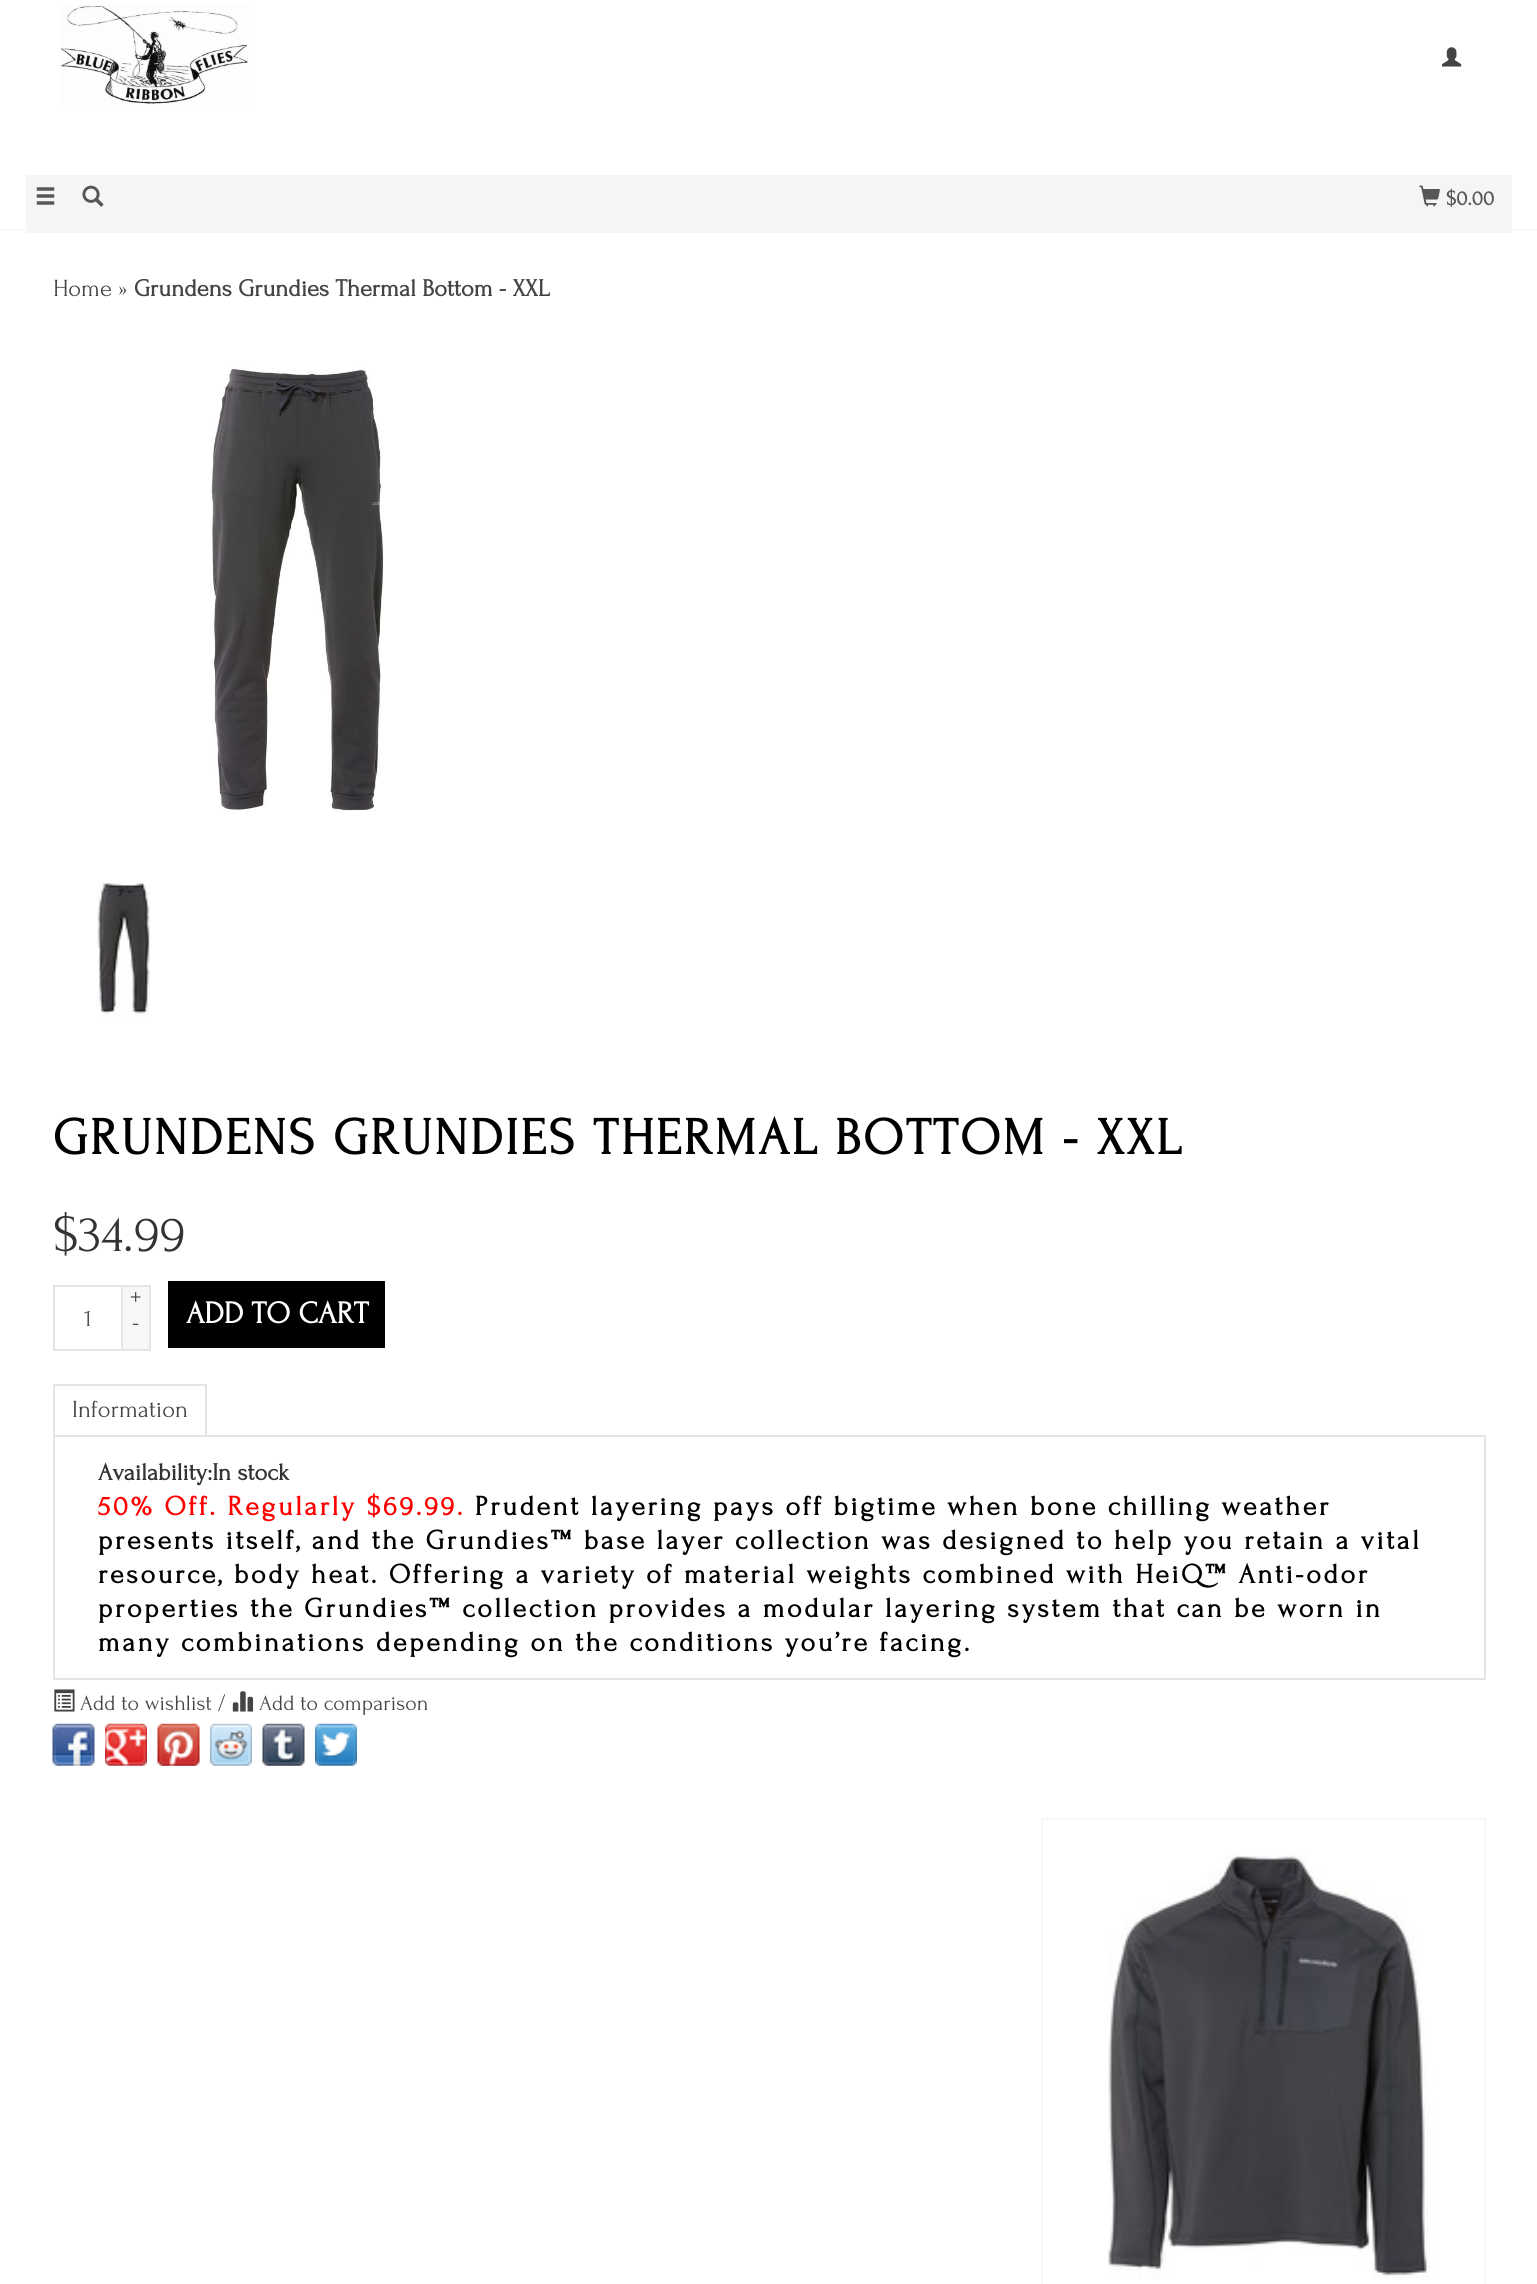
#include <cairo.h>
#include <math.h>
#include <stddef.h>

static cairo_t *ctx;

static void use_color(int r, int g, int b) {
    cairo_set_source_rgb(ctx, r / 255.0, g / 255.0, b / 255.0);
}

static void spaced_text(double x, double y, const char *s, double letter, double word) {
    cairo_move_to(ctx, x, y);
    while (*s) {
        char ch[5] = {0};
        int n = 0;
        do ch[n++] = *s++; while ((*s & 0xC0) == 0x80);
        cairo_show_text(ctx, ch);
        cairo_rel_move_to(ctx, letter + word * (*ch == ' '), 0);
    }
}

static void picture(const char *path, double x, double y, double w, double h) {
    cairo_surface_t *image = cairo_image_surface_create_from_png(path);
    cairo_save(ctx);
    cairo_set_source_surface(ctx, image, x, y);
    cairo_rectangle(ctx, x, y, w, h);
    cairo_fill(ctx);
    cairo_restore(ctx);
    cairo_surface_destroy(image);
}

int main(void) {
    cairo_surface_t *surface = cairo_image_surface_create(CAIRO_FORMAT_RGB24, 1537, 2284);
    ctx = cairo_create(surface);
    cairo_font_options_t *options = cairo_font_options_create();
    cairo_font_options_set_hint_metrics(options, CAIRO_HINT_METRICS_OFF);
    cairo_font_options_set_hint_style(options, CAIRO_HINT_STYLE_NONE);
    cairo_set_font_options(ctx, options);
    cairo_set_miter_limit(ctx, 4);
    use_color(255, 255, 255);
    cairo_paint(ctx);
    use_color(247, 247, 247);
    cairo_rectangle(ctx, 0, 229, 1537, 2);
    cairo_fill(ctx);
    picture("img1.png", 60, 5, 189, 100);
    picture("img2.png", 1442, 47, 20, 20);
    use_color(245, 245, 245);
    cairo_rectangle(ctx, 26, 175, 1486, 58);
    cairo_fill(ctx);
    picture("img3.png", 36, 187, 19, 18);
    picture("img4.png", 82, 185, 22, 22);
    picture("img5.png", 1419, 185, 21, 22);
    cairo_select_font_face(ctx, "Forum", CAIRO_FONT_SLANT_NORMAL, CAIRO_FONT_WEIGHT_BOLD);
    cairo_set_font_size(ctx, 21);
    use_color(89, 86, 86);
    cairo_move_to(ctx, 1446, 205);
    cairo_show_text(ctx, "$0.00");
    cairo_select_font_face(ctx, "Forum", CAIRO_FONT_SLANT_NORMAL, CAIRO_FONT_WEIGHT_NORMAL);
    cairo_set_font_size(ctx, 24.5);
    use_color(68, 68, 68);
    cairo_move_to(ctx, 53, 296);
    cairo_show_text(ctx, "Home");
    use_color(51, 51, 51);
    cairo_move_to(ctx, 118, 296);
    cairo_show_text(ctx, "»");
    cairo_select_font_face(ctx, "Forum", CAIRO_FONT_SLANT_NORMAL, CAIRO_FONT_WEIGHT_BOLD);
    use_color(68, 68, 68);
    cairo_move_to(ctx, 134, 296);
    cairo_show_text(ctx, "Grundens Grundies Thermal Bottom - XXL");
    picture("img6.png", 210, 367, 174, 445);
    picture("img7.png", 97, 882, 53, 135);
    cairo_set_font_size(ctx, 52.5);
    use_color(0, 0, 0);
    spaced_text(53, 1154, "GRUNDENS GRUNDIES THERMAL BOTTOM - XXL", 2.62, 0);
    cairo_select_font_face(ctx, "Forum", CAIRO_FONT_SLANT_NORMAL, CAIRO_FONT_WEIGHT_NORMAL);
    use_color(51, 51, 51);
    cairo_move_to(ctx, 53, 1251);
    cairo_show_text(ctx, "$34.99");
    cairo_rectangle(ctx, 54, 1286, 68, 64);
    use_color(229, 229, 229);
    cairo_stroke(ctx);
    cairo_set_font_size(ctx, 24.5);
    use_color(81, 80, 80);
    cairo_move_to(ctx, 84, 1326);
    cairo_show_text(ctx, "1");
    use_color(247, 247, 247);
    cairo_rectangle(ctx, 123, 1287, 26, 62);
    cairo_fill(ctx);
    use_color(229, 229, 229);
    cairo_rectangle(ctx, 123, 1285, 28, 2);
    cairo_fill(ctx);
    cairo_rectangle(ctx, 149, 1285, 2, 66);
    cairo_fill(ctx);
    cairo_rectangle(ctx, 123, 1349, 28, 2);
    cairo_fill(ctx);
    use_color(68, 68, 68);
    cairo_move_to(ctx, 130, 1305);
    cairo_show_text(ctx, "+");
    cairo_move_to(ctx, 132, 1330);
    cairo_show_text(ctx, "-");
    use_color(0, 0, 0);
    cairo_rectangle(ctx, 168, 1281, 217, 67);
    cairo_fill(ctx);
    cairo_select_font_face(ctx, "Forum", CAIRO_FONT_SLANT_NORMAL, CAIRO_FONT_WEIGHT_BOLD);
    cairo_set_font_size(ctx, 31.5);
    use_color(255, 255, 255);
    cairo_move_to(ctx, 186, 1323);
    cairo_show_text(ctx, "ADD TO CART");
    use_color(229, 229, 229);
    cairo_rectangle(ctx, 53, 1384, 154, 2);
    cairo_fill(ctx);
    cairo_rectangle(ctx, 205, 1384, 2, 53);
    cairo_fill(ctx);
    cairo_rectangle(ctx, 53, 1384, 2, 53);
    cairo_fill(ctx);
    cairo_select_font_face(ctx, "Forum", CAIRO_FONT_SLANT_NORMAL, CAIRO_FONT_WEIGHT_NORMAL);
    cairo_set_font_size(ctx, 24.5);
    use_color(68, 68, 68);
    cairo_move_to(ctx, 72, 1417);
    cairo_show_text(ctx, "Information");
    cairo_rectangle(ctx, 54, 1436, 1431, 243);
    use_color(229, 229, 229);
    cairo_stroke(ctx);
    cairo_select_font_face(ctx, "Forum", CAIRO_FONT_SLANT_NORMAL, CAIRO_FONT_WEIGHT_BOLD);
    use_color(51, 51, 51);
    cairo_move_to(ctx, 98, 1480);
    cairo_show_text(ctx, "Availability:In stock");
    cairo_set_font_size(ctx, 28);
    use_color(255, 0, 0);
    spaced_text(98, 1515, "50% Off. Regularly $69.99.", 2.62, 0);
    use_color(0, 0, 0);
    spaced_text(475, 1515, "Prudent layering pays off bigtime when bone chilling weather", 2.62, 0);
    spaced_text(98, 1549, "presents itself, and the Grundies™ base layer collection was designed to help you retain a vital", 2.62, 0);
    spaced_text(98, 1583, "resource, body heat. Offering a variety of material weights combined with HeiQ™ Anti-odor", 2.62, 0);
    spaced_text(98, 1617, "properties the Grundies™ collection provides a modular layering system that can be worn in", 2.62, 0);
    spaced_text(98, 1651, "many combinations depending on the conditions you’re facing.", 2.62, 0);
    picture("img8.png", 54, 1689, 21, 23);
    cairo_select_font_face(ctx, "Forum", CAIRO_FONT_SLANT_NORMAL, CAIRO_FONT_WEIGHT_NORMAL);
    cairo_set_font_size(ctx, 22);
    use_color(68, 68, 68);
    cairo_move_to(ctx, 80, 1710);
    cairo_show_text(ctx, "Add to wishlist");
    use_color(51, 51, 51);
    cairo_move_to(ctx, 218, 1710);
    cairo_show_text(ctx, "/");
    picture("img9.png", 232, 1691, 22, 21);
    use_color(68, 68, 68);
    cairo_move_to(ctx, 259, 1710);
    cairo_show_text(ctx, "Add to comparison");
    picture("img10.png", 52, 1723, 43, 43);
    picture("img11.png", 105, 1723, 42, 43);
    picture("img12.png", 157, 1723, 43, 43);
    picture("img13.png", 210, 1723, 42, 43);
    picture("img14.png", 262, 1723, 43, 43);
    picture("img15.png", 315, 1723, 42, 43);
    cairo_rectangle(ctx, 1042, 1819, 443, 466);
    use_color(247, 247, 247);
    cairo_stroke(ctx);
    picture("img16.png", 1108, 1853, 330, 427);
    cairo_surface_write_to_png(surface, "result.png");
    cairo_font_options_destroy(options);
    cairo_destroy(ctx);
    cairo_surface_destroy(surface);
    return 0;
}
